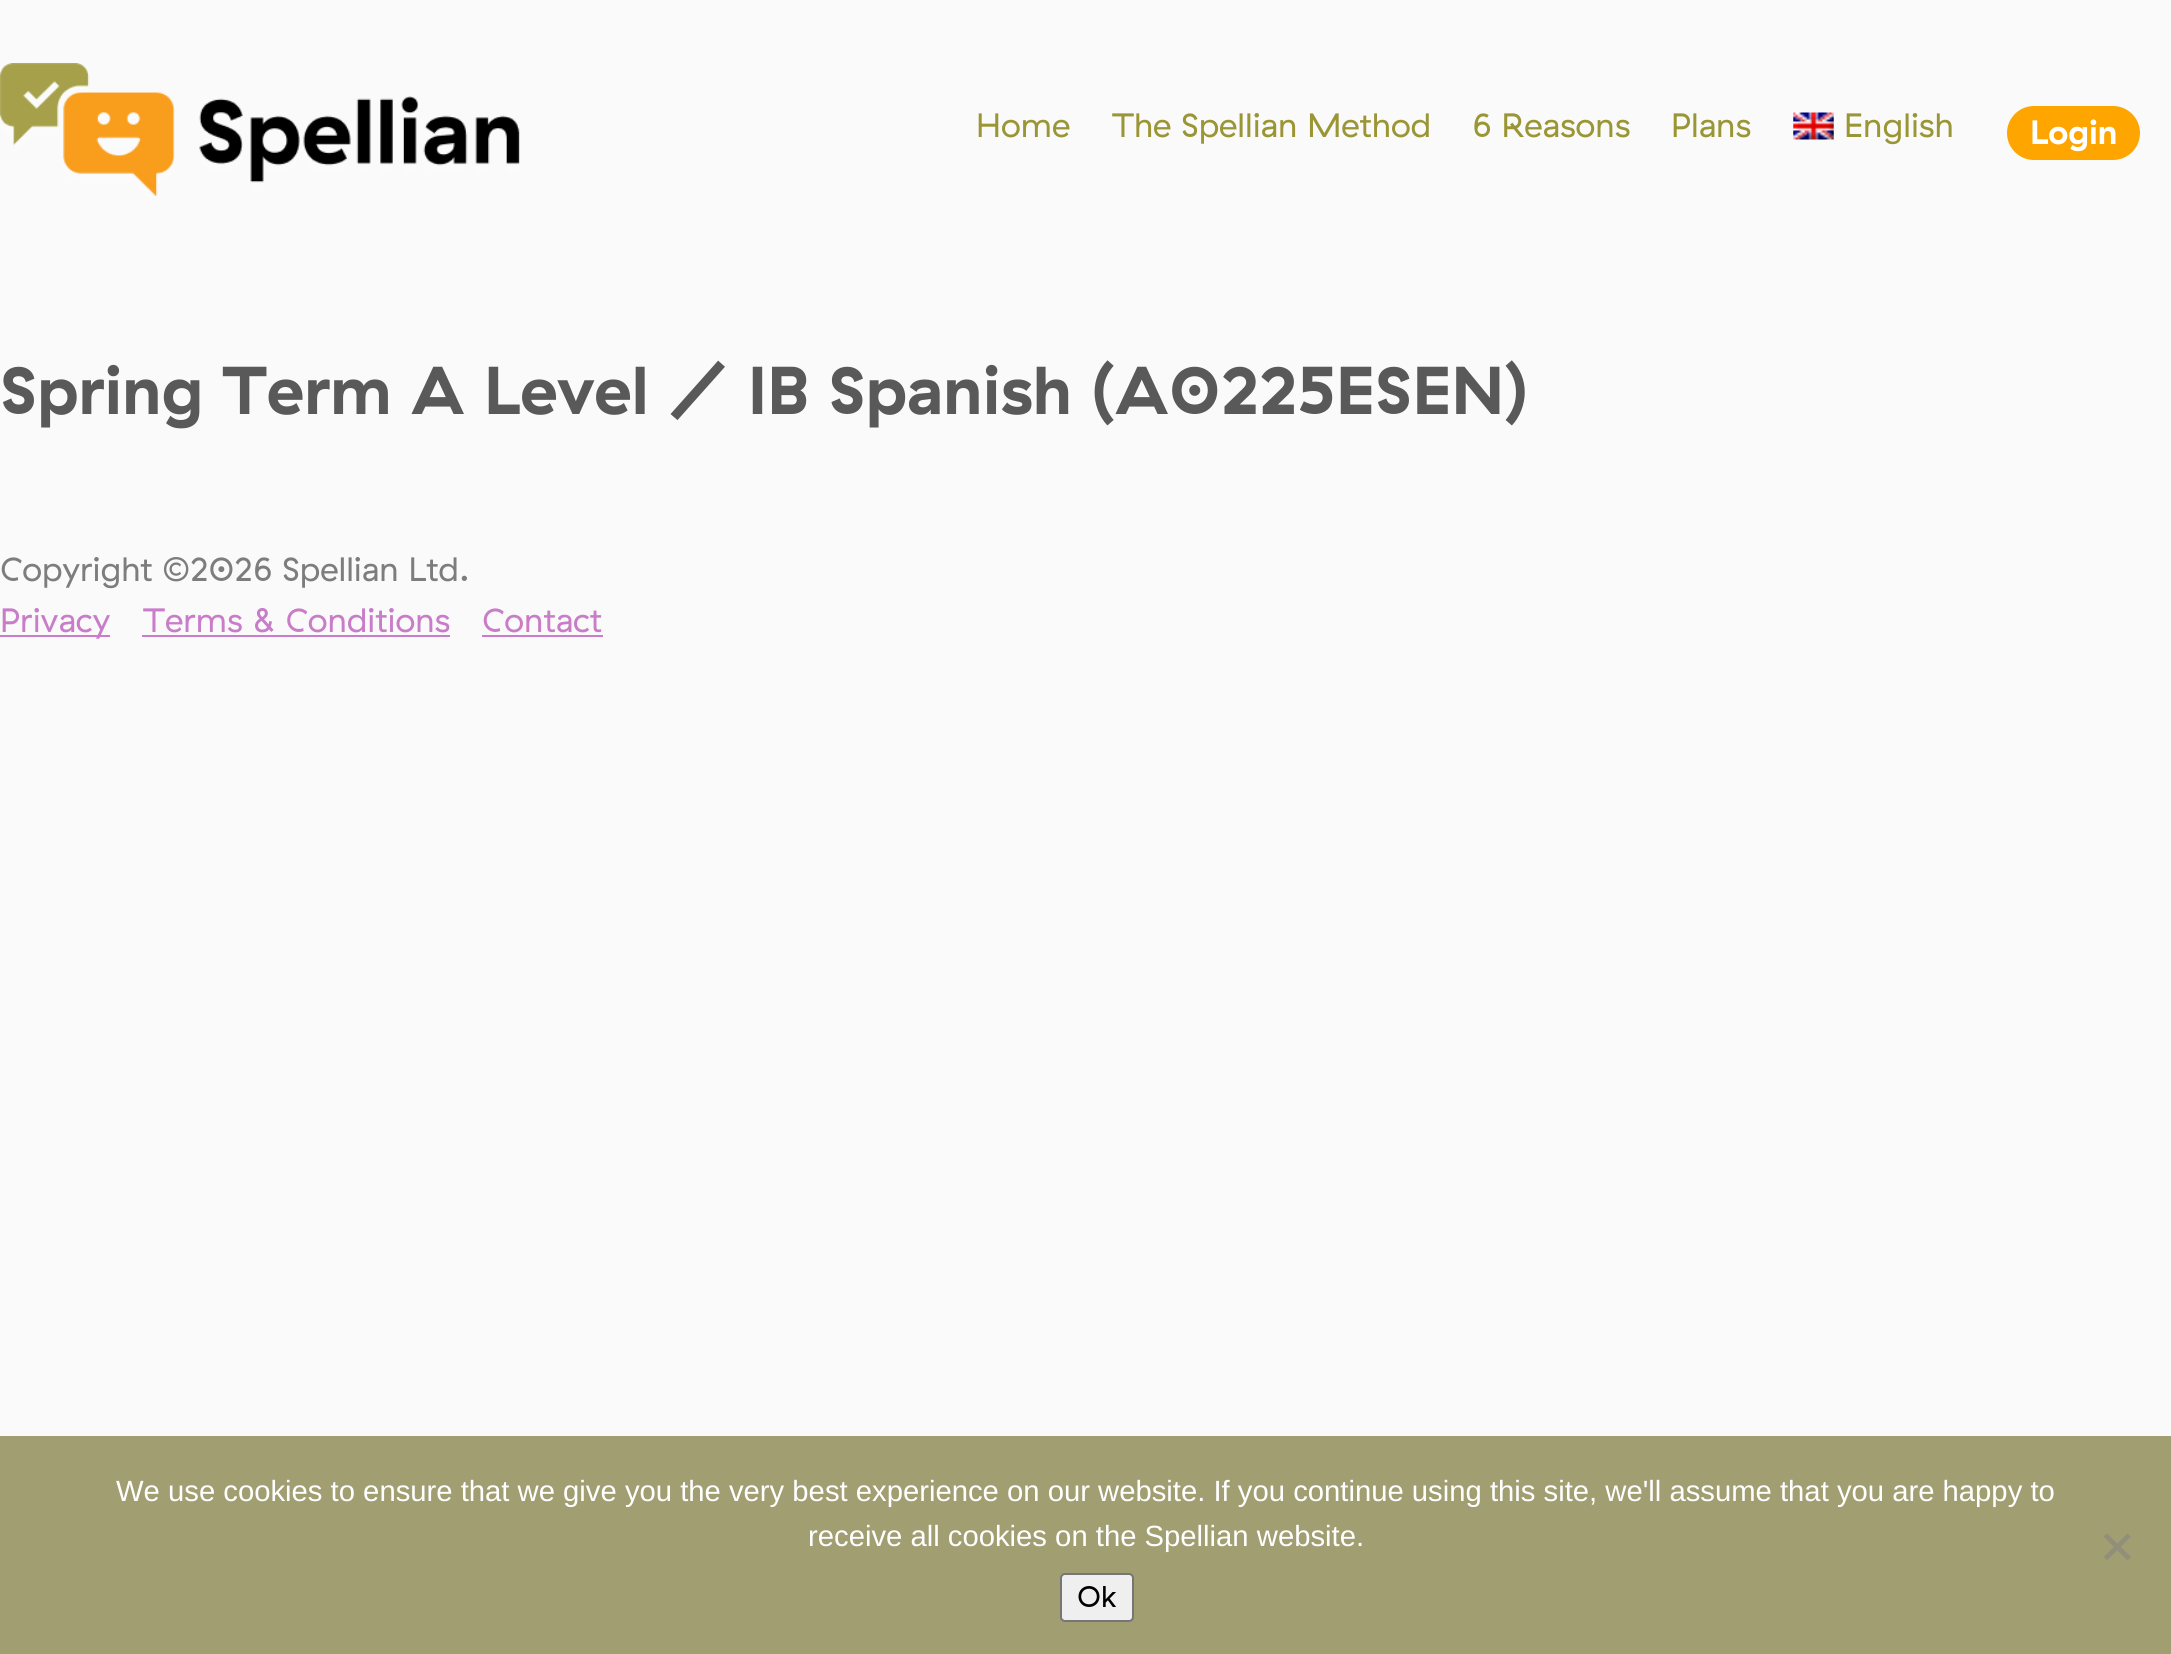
#include <cairo.h>
#include <math.h>
#include <stddef.h>

static cairo_t *ctx;

static void use_color(int r, int g, int b) {
    cairo_set_source_rgb(ctx, r / 255.0, g / 255.0, b / 255.0);
}

static void round_rect(double x, double y, double w, double h, double r) {
    cairo_new_sub_path(ctx);
    cairo_arc(ctx, x + w - r, y + h - r, r, 0, M_PI / 2);
    cairo_arc(ctx, x + r, y + h - r, r, M_PI / 2, M_PI);
    cairo_arc(ctx, x + r, y + r, r, M_PI, 1.5 * M_PI);
    cairo_arc(ctx, x + w - r, y + r, r, 1.5 * M_PI, 2 * M_PI);
    cairo_close_path(ctx);
}

static void picture(const char *path, double x, double y, double w, double h) {
    cairo_surface_t *image = cairo_image_surface_create_from_png(path);
    cairo_save(ctx);
    cairo_set_source_surface(ctx, image, x, y);
    cairo_rectangle(ctx, x, y, w, h);
    cairo_fill(ctx);
    cairo_restore(ctx);
    cairo_surface_destroy(image);
}

int main(void) {
    cairo_surface_t *surface = cairo_image_surface_create(CAIRO_FORMAT_RGB24, 2171, 1654);
    ctx = cairo_create(surface);
    cairo_font_options_t *options = cairo_font_options_create();
    cairo_font_options_set_hint_metrics(options, CAIRO_HINT_METRICS_OFF);
    cairo_font_options_set_hint_style(options, CAIRO_HINT_STYLE_NONE);
    cairo_set_font_options(ctx, options);
    cairo_set_miter_limit(ctx, 4);
    use_color(250, 250, 250);
    cairo_paint(ctx);
    picture("img1.png", 0, 63, 520, 134);
    cairo_select_font_face(ctx, "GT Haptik", CAIRO_FONT_SLANT_NORMAL, CAIRO_FONT_WEIGHT_NORMAL);
    cairo_set_font_size(ctx, 33.75);
    use_color(155, 150, 53);
    cairo_move_to(ctx, 976, 137);
    cairo_show_text(ctx, "Home");
    cairo_move_to(ctx, 1112, 137);
    cairo_show_text(ctx, "The Spellian Method");
    cairo_move_to(ctx, 1472, 137);
    cairo_show_text(ctx, "6 Reasons");
    cairo_move_to(ctx, 1671, 137);
    cairo_show_text(ctx, "Plans");
    picture("img2.png", 1793, 112, 41, 28);
    cairo_move_to(ctx, 1844, 137);
    cairo_show_text(ctx, "English");
    use_color(255, 165, 0);
    round_rect(2007, 106, 133, 54, 27);
    cairo_fill(ctx);
    cairo_select_font_face(ctx, "GT Haptik", CAIRO_FONT_SLANT_NORMAL, CAIRO_FONT_WEIGHT_BOLD);
    use_color(255, 255, 255);
    cairo_move_to(ctx, 2030, 144);
    cairo_show_text(ctx, "Login");
    cairo_set_font_size(ctx, 67.5);
    use_color(89, 89, 89);
    cairo_move_to(ctx, 0, 414);
    cairo_show_text(ctx, "Spring Term A Level / IB Spanish (A0225ESEN)");
    cairo_select_font_face(ctx, "GT Haptik", CAIRO_FONT_SLANT_NORMAL, CAIRO_FONT_WEIGHT_NORMAL);
    cairo_set_font_size(ctx, 33.75);
    use_color(125, 125, 125);
    cairo_move_to(ctx, 0, 581);
    cairo_show_text(ctx, "Copyright ©2026 Spellian Ltd.");
    use_color(202, 125, 202);
    cairo_rectangle(ctx, 0, 635, 110, 2);
    cairo_fill(ctx);
    use_color(201, 125, 201);
    cairo_move_to(ctx, 0, 632);
    cairo_show_text(ctx, "Privacy");
    cairo_move_to(ctx, 143, 632);
    cairo_show_text(ctx, "Terms & Conditions");
    use_color(202, 125, 202);
    cairo_rectangle(ctx, 142, 635, 308, 2);
    cairo_fill(ctx);
    use_color(201, 125, 201);
    cairo_move_to(ctx, 482, 632);
    cairo_show_text(ctx, "Contact");
    use_color(202, 125, 202);
    cairo_rectangle(ctx, 482, 635, 121, 2);
    cairo_fill(ctx);
    use_color(161, 158, 114);
    cairo_rectangle(ctx, 0, 1436, 2171, 218);
    cairo_fill(ctx);
    cairo_select_font_face(ctx, "Liberation Sans", CAIRO_FONT_SLANT_NORMAL, CAIRO_FONT_WEIGHT_NORMAL);
    cairo_set_font_size(ctx, 29.25);
    use_color(255, 255, 255);
    cairo_move_to(ctx, 116, 1501);
    cairo_show_text(ctx, "We use cookies to ensure that we give you the very best experience on our website. If you continue using this site, we'll assume that you are happy to");
    cairo_move_to(ctx, 808, 1546);
    cairo_show_text(ctx, "receive all cookies on the Spellian website.");
    use_color(145, 143, 121);
    cairo_new_path(ctx);
    cairo_move_to(ctx, 2127.5, 1533.5);
    cairo_line_to(ctx, 2131, 1536.5);
    cairo_line_to(ctx, 2107, 1560.5);
    cairo_line_to(ctx, 2103.5, 1557);
    cairo_close_path(ctx);
    cairo_fill(ctx);
    cairo_new_path(ctx);
    cairo_move_to(ctx, 2103.5, 1536.5);
    cairo_line_to(ctx, 2107, 1533.5);
    cairo_line_to(ctx, 2131, 1557);
    cairo_line_to(ctx, 2127.5, 1560.5);
    cairo_close_path(ctx);
    cairo_fill(ctx);
    use_color(239, 239, 239);
    round_rect(1061, 1574, 72, 47, 4);
    cairo_fill_preserve(ctx);
    use_color(118, 118, 118);
    cairo_stroke(ctx);
    cairo_select_font_face(ctx, "GT Haptik", CAIRO_FONT_SLANT_NORMAL, CAIRO_FONT_WEIGHT_NORMAL);
    cairo_set_font_size(ctx, 30);
    use_color(0, 0, 0);
    cairo_move_to(ctx, 1077, 1607);
    cairo_show_text(ctx, "Ok");
    cairo_surface_write_to_png(surface, "result.png");
    cairo_font_options_destroy(options);
    cairo_destroy(ctx);
    cairo_surface_destroy(surface);
    return 0;
}
